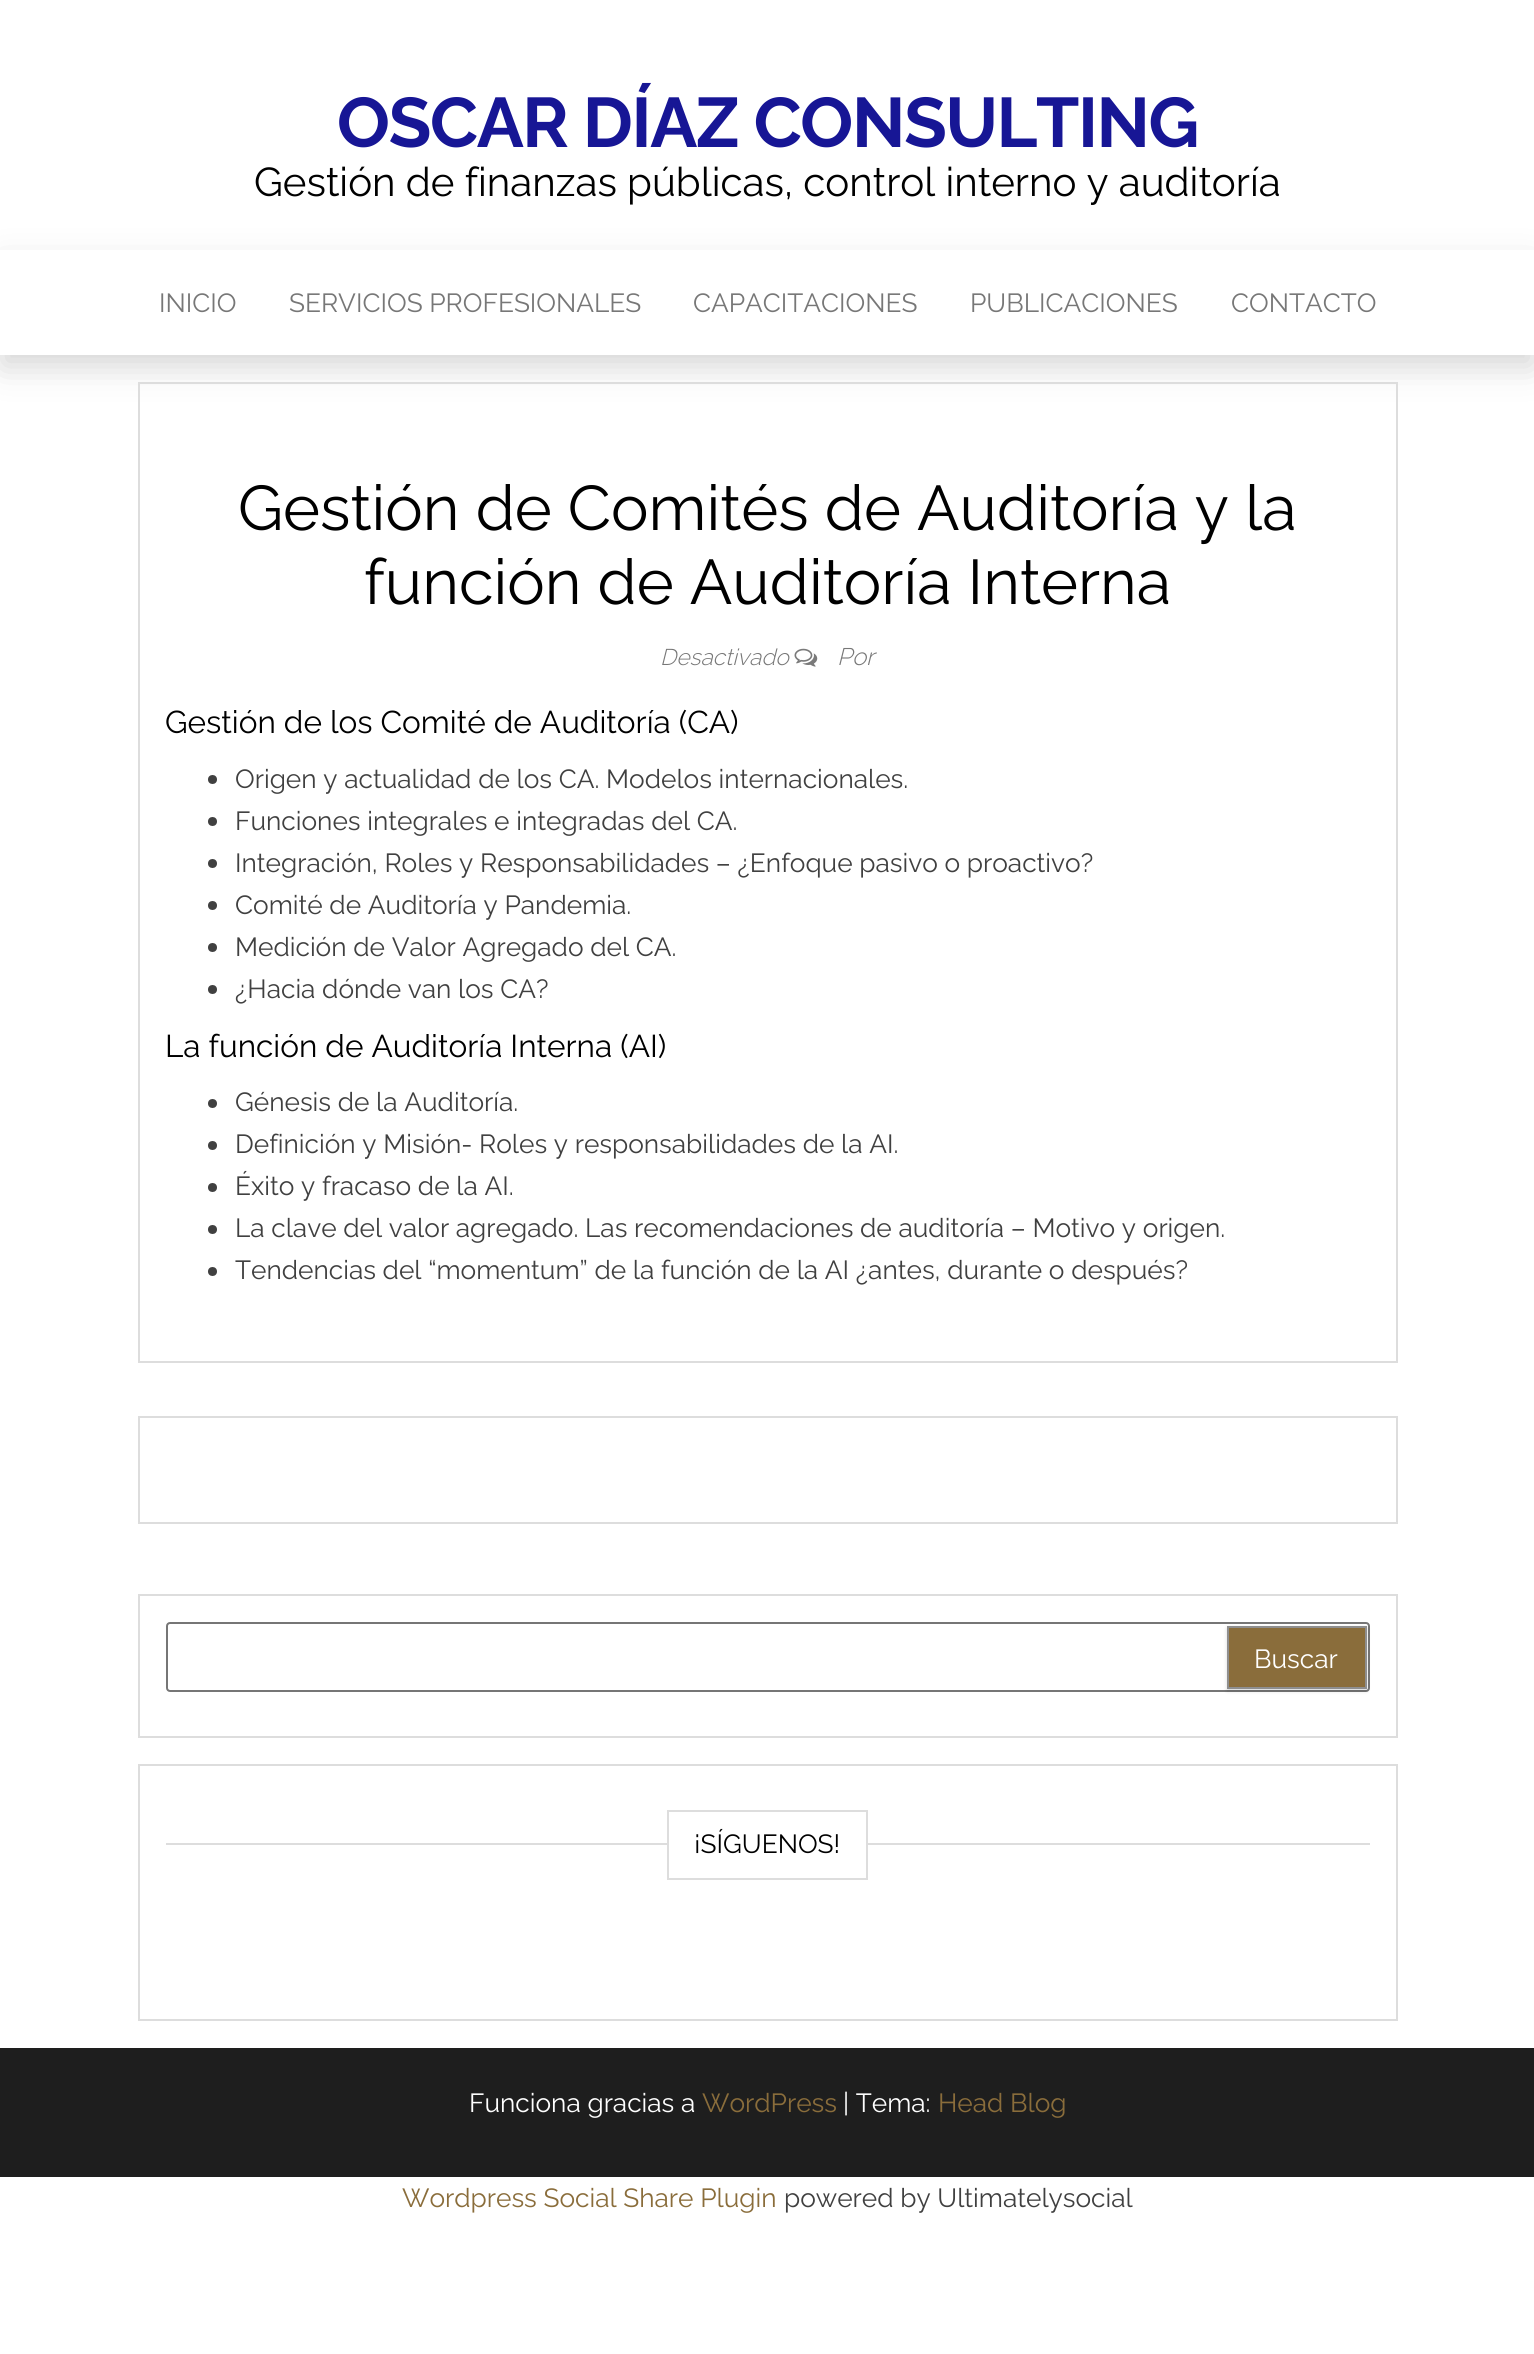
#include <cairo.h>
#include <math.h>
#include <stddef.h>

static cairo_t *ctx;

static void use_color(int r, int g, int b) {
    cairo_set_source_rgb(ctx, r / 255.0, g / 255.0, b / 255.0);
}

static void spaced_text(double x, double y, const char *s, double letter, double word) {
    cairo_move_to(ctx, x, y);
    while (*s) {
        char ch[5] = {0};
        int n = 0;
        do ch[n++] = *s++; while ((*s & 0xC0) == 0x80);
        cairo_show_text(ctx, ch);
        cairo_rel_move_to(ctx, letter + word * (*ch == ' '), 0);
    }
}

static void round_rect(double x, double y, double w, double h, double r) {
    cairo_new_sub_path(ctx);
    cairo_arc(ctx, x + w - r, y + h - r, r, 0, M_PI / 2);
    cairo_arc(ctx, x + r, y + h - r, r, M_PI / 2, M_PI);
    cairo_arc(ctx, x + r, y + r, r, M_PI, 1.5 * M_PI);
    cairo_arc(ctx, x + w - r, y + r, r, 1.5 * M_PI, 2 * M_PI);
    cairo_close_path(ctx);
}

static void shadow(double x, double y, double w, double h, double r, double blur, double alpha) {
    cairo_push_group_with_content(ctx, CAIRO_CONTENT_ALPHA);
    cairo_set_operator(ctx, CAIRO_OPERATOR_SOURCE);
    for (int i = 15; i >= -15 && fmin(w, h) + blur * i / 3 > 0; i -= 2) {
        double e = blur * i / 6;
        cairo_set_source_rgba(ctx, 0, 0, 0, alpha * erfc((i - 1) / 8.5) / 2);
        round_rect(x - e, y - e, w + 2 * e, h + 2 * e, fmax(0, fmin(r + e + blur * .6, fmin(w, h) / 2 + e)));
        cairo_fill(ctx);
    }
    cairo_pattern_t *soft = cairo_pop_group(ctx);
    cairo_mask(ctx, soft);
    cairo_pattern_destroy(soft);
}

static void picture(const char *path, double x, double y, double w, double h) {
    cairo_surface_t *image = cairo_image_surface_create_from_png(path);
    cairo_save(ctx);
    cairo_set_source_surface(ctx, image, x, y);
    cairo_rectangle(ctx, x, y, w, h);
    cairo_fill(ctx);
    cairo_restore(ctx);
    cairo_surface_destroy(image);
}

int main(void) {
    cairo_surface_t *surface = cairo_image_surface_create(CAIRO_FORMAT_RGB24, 1534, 2354);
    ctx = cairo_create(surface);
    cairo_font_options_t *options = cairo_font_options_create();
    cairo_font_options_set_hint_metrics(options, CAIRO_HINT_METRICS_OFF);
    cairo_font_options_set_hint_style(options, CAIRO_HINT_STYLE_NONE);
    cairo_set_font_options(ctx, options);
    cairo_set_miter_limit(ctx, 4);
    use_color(255, 255, 255);
    cairo_paint(ctx);
    cairo_select_font_face(ctx, "Raleway", CAIRO_FONT_SLANT_NORMAL, CAIRO_FONT_WEIGHT_BOLD);
    cairo_set_font_size(ctx, 70);
    use_color(23, 22, 149);
    spaced_text(337, 147, "OSCAR DÍAZ CONSULTING", -1.4, 0);
    cairo_select_font_face(ctx, "Raleway", CAIRO_FONT_SLANT_NORMAL, CAIRO_FONT_WEIGHT_NORMAL);
    cairo_set_font_size(ctx, 40.25);
    use_color(0, 0, 0);
    cairo_move_to(ctx, 254, 196);
    cairo_show_text(ctx, "Gestión de finanzas públicas, control interno y auditoría");
    use_color(0, 0, 0);
    shadow(2, 264, 1531, 102, 0, 16.5, 0.17);
    use_color(255, 255, 255);
    cairo_rectangle(ctx, 0, 250, 1534, 105);
    cairo_fill(ctx);
    cairo_set_font_size(ctx, 26.25);
    use_color(119, 119, 119);
    cairo_move_to(ctx, 159, 312);
    cairo_show_text(ctx, "INICIO");
    cairo_move_to(ctx, 289, 312);
    cairo_show_text(ctx, "SERVICIOS PROFESIONALES");
    cairo_move_to(ctx, 693, 312);
    cairo_show_text(ctx, "CAPACITACIONES");
    cairo_move_to(ctx, 970, 312);
    cairo_show_text(ctx, "PUBLICACIONES");
    cairo_move_to(ctx, 1231, 312);
    cairo_show_text(ctx, "CONTACTO");
    cairo_rectangle(ctx, 139, 383, 1258, 979);
    use_color(221, 221, 221);
    cairo_stroke(ctx);
    cairo_set_font_size(ctx, 63);
    use_color(0, 0, 0);
    cairo_move_to(ctx, 238, 530);
    cairo_show_text(ctx, "Gestión de Comités de Auditoría y la");
    cairo_move_to(ctx, 364, 604);
    cairo_show_text(ctx, "función de Auditoría Interna");
    cairo_select_font_face(ctx, "Raleway Light", CAIRO_FONT_SLANT_ITALIC, CAIRO_FONT_WEIGHT_NORMAL);
    cairo_set_font_size(ctx, 22.75);
    use_color(119, 119, 119);
    cairo_move_to(ctx, 660, 665);
    cairo_show_text(ctx, "Desactivado");
    picture("img1.png", 794, 648, 24, 19);
    cairo_set_font_size(ctx, 24);
    cairo_move_to(ctx, 837, 665);
    cairo_show_text(ctx, "Por");
    cairo_select_font_face(ctx, "Raleway", CAIRO_FONT_SLANT_NORMAL, CAIRO_FONT_WEIGHT_NORMAL);
    cairo_set_font_size(ctx, 31.5);
    use_color(0, 0, 0);
    cairo_move_to(ctx, 165, 733);
    cairo_show_text(ctx, "Gestión de los Comité de Auditoría (CA)");
    use_color(64, 64, 64);
    cairo_new_path(ctx);
    cairo_arc(ctx, 212.5, 779.5, 4.5, 0, 2 * M_PI);
    cairo_fill(ctx);
    cairo_set_font_size(ctx, 26.25);
    cairo_move_to(ctx, 235, 788);
    cairo_show_text(ctx, "Origen y actualidad de los CA. Modelos internacionales.");
    cairo_new_path(ctx);
    cairo_arc(ctx, 212.5, 821.5, 4.5, 0, 2 * M_PI);
    cairo_fill(ctx);
    cairo_move_to(ctx, 235, 830);
    cairo_show_text(ctx, "Funciones integrales e integradas del CA.");
    cairo_new_path(ctx);
    cairo_arc(ctx, 212.5, 863.5, 4.5, 0, 2 * M_PI);
    cairo_fill(ctx);
    cairo_move_to(ctx, 235, 872);
    cairo_show_text(ctx, "Integración, Roles y Responsabilidades – ¿Enfoque pasivo o proactivo?");
    cairo_new_path(ctx);
    cairo_arc(ctx, 212.5, 905.5, 4.5, 0, 2 * M_PI);
    cairo_fill(ctx);
    cairo_move_to(ctx, 235, 914);
    cairo_show_text(ctx, "Comité de Auditoría y Pandemia.");
    cairo_new_path(ctx);
    cairo_arc(ctx, 212.5, 947.5, 4.5, 0, 2 * M_PI);
    cairo_fill(ctx);
    cairo_move_to(ctx, 235, 956);
    cairo_show_text(ctx, "Medición de Valor Agregado del CA.");
    cairo_new_path(ctx);
    cairo_arc(ctx, 212.5, 989.5, 4.5, 0, 2 * M_PI);
    cairo_fill(ctx);
    cairo_move_to(ctx, 235, 998);
    cairo_show_text(ctx, "¿Hacia dónde van los CA?");
    cairo_set_font_size(ctx, 31.5);
    use_color(0, 0, 0);
    cairo_move_to(ctx, 165, 1057);
    cairo_show_text(ctx, "La función de Auditoría Interna (AI)");
    use_color(64, 64, 64);
    cairo_new_path(ctx);
    cairo_arc(ctx, 212.5, 1103.5, 4.5, 0, 2 * M_PI);
    cairo_fill(ctx);
    cairo_set_font_size(ctx, 26.25);
    cairo_move_to(ctx, 235, 1111);
    cairo_show_text(ctx, "Génesis de la Auditoría.");
    cairo_new_path(ctx);
    cairo_arc(ctx, 212.5, 1145.5, 4.5, 0, 2 * M_PI);
    cairo_fill(ctx);
    cairo_move_to(ctx, 235, 1153);
    cairo_show_text(ctx, "Definición y Misión- Roles y responsabilidades de la AI.");
    cairo_new_path(ctx);
    cairo_arc(ctx, 212.5, 1187.5, 4.5, 0, 2 * M_PI);
    cairo_fill(ctx);
    cairo_move_to(ctx, 235, 1195);
    cairo_show_text(ctx, "Éxito y fracaso de la AI.");
    cairo_new_path(ctx);
    cairo_arc(ctx, 212.5, 1229.5, 4.5, 0, 2 * M_PI);
    cairo_fill(ctx);
    cairo_move_to(ctx, 235, 1237);
    cairo_show_text(ctx, "La clave del valor agregado. Las recomendaciones de auditoría – Motivo y origen.");
    cairo_new_path(ctx);
    cairo_arc(ctx, 212.5, 1271.5, 4.5, 0, 2 * M_PI);
    cairo_fill(ctx);
    cairo_move_to(ctx, 235, 1279);
    cairo_show_text(ctx, "Tendencias del “momentum” de la función de la AI ¿antes, durante o después?");
    cairo_rectangle(ctx, 139, 1417, 1258, 106);
    use_color(221, 221, 221);
    cairo_stroke(ctx);
    cairo_rectangle(ctx, 139, 1595, 1258, 142);
    cairo_stroke(ctx);
    round_rect(167, 1623, 1202, 68, 3);
    use_color(118, 118, 118);
    cairo_stroke(ctx);
    use_color(0, 0, 0);
    shadow(1227, 1628, 140, 63, 0, 2, 0.15);
    use_color(138, 109, 59);
    cairo_rectangle(ctx, 1228, 1627, 138, 61);
    cairo_fill_preserve(ctx);
    use_color(142, 142, 142);
    cairo_stroke(ctx);
    use_color(255, 255, 255);
    cairo_move_to(ctx, 1254, 1668);
    cairo_show_text(ctx, "Buscar");
    cairo_rectangle(ctx, 139, 1765, 1258, 255);
    use_color(221, 221, 221);
    cairo_stroke(ctx);
    cairo_rectangle(ctx, 166, 1843, 1204, 2);
    cairo_fill(ctx);
    use_color(255, 255, 255);
    cairo_rectangle(ctx, 669, 1843, 197, 2);
    cairo_fill(ctx);
    cairo_rectangle(ctx, 668, 1811, 199, 68);
    use_color(221, 221, 221);
    cairo_stroke(ctx);
    use_color(0, 0, 0);
    cairo_move_to(ctx, 694, 1853);
    cairo_show_text(ctx, "¡SÍGUENOS!");
    use_color(30, 30, 30);
    cairo_rectangle(ctx, 0, 2048, 1534, 129);
    cairo_fill(ctx);
    use_color(255, 255, 255);
    cairo_move_to(ctx, 469, 2112);
    cairo_show_text(ctx, "Funciona gracias a");
    use_color(138, 109, 59);
    cairo_move_to(ctx, 702, 2112);
    cairo_show_text(ctx, "WordPress");
    use_color(255, 255, 255);
    cairo_move_to(ctx, 843, 2112);
    cairo_show_text(ctx, "| Tema:");
    use_color(138, 109, 59);
    cairo_move_to(ctx, 938, 2112);
    cairo_show_text(ctx, "Head Blog");
    cairo_move_to(ctx, 402, 2207);
    cairo_show_text(ctx, "Wordpress Social Share Plugin");
    use_color(64, 64, 64);
    cairo_move_to(ctx, 784, 2207);
    cairo_show_text(ctx, "powered by Ultimatelysocial");
    cairo_surface_write_to_png(surface, "result.png");
    cairo_font_options_destroy(options);
    cairo_destroy(ctx);
    cairo_surface_destroy(surface);
    return 0;
}
